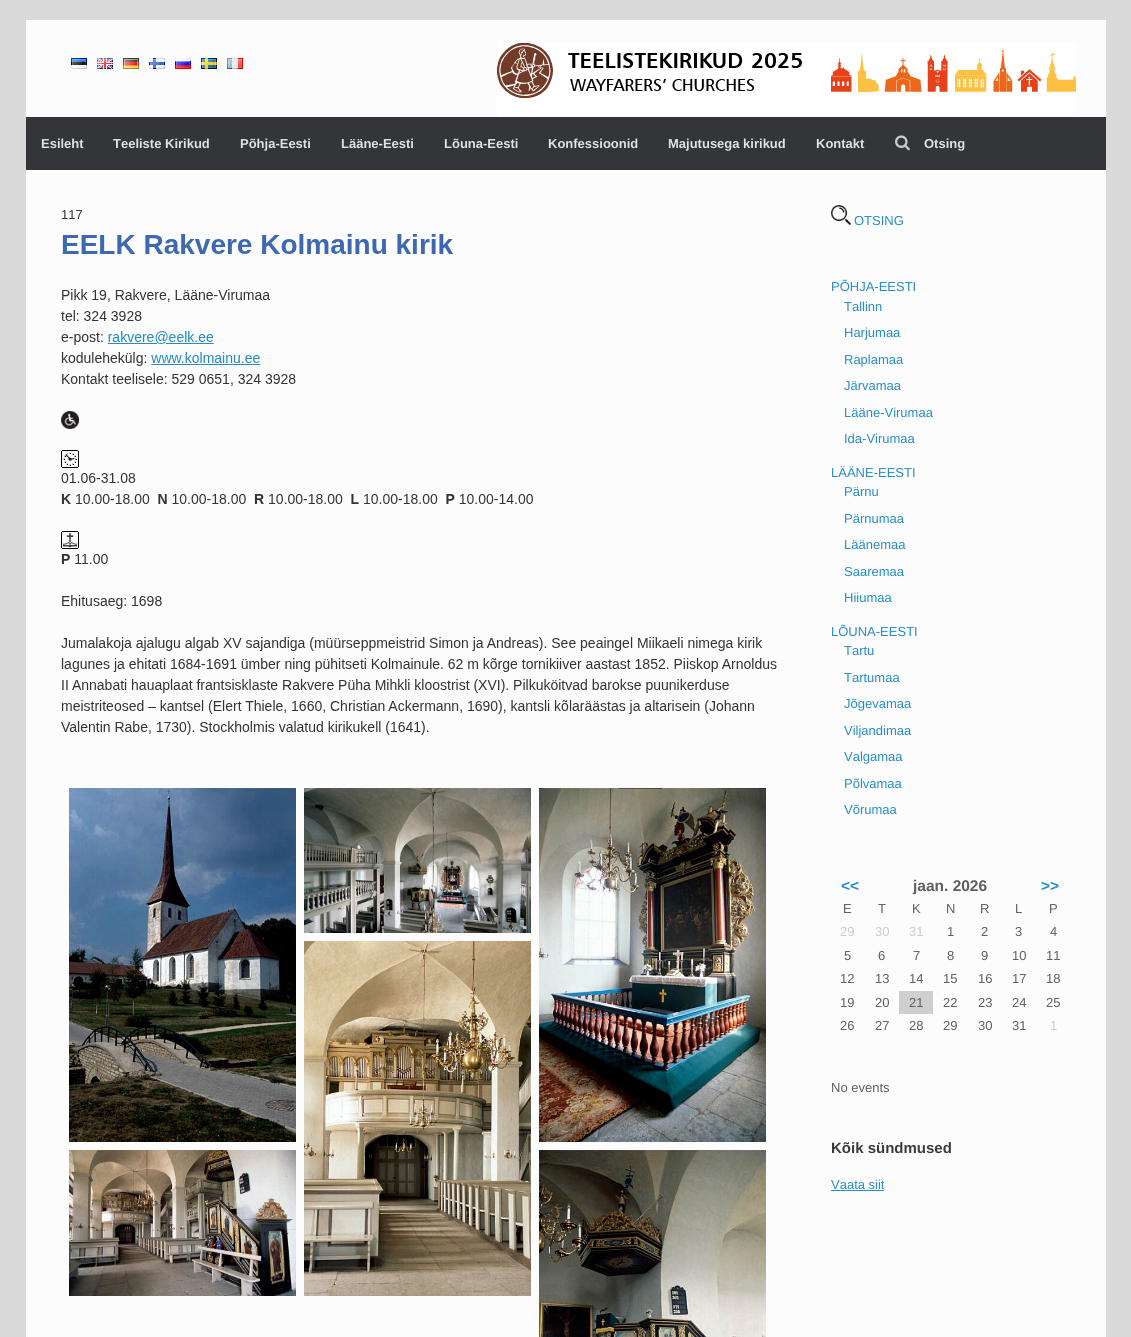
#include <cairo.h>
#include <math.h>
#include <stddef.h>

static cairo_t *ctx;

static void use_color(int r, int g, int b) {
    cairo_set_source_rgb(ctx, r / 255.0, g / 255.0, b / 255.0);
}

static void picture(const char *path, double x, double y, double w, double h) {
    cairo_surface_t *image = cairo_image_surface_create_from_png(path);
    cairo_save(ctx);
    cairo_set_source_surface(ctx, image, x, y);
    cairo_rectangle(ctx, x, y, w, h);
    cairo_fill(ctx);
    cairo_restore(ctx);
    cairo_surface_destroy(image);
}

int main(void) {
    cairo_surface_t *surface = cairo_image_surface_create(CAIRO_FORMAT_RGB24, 1131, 1337);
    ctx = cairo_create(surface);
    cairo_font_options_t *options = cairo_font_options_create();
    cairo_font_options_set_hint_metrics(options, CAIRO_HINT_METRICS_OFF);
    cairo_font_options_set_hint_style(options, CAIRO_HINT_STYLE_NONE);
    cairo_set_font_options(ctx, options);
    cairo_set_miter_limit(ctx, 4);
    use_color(218, 218, 218);
    cairo_paint(ctx);
    use_color(252, 252, 252);
    cairo_rectangle(ctx, 26, 20, 1080, 97);
    cairo_fill(ctx);
    picture("img1.png", 497, 43, 579, 74);
    picture("img2.png", 71, 58, 16, 11);
    picture("img3.png", 97, 58, 16, 11);
    picture("img4.png", 123, 58, 16, 11);
    picture("img5.png", 149, 58, 16, 11);
    picture("img6.png", 175, 58, 16, 11);
    picture("img7.png", 201, 58, 16, 11);
    picture("img8.png", 227, 58, 16, 11);
    use_color(52, 53, 56);
    cairo_rectangle(ctx, 26, 117, 1080, 53);
    cairo_fill(ctx);
    cairo_select_font_face(ctx, "Liberation Sans", CAIRO_FONT_SLANT_NORMAL, CAIRO_FONT_WEIGHT_BOLD);
    cairo_set_font_size(ctx, 13);
    use_color(226, 226, 226);
    cairo_move_to(ctx, 41, 148);
    cairo_show_text(ctx, "Esileht");
    cairo_move_to(ctx, 113, 148);
    cairo_show_text(ctx, "Teeliste Kirikud");
    cairo_move_to(ctx, 240, 148);
    cairo_show_text(ctx, "Põhja-Eesti");
    cairo_move_to(ctx, 341, 148);
    cairo_show_text(ctx, "Lääne-Eesti");
    cairo_move_to(ctx, 444, 148);
    cairo_show_text(ctx, "Lõuna-Eesti");
    cairo_move_to(ctx, 548, 148);
    cairo_show_text(ctx, "Konfessioonid");
    cairo_move_to(ctx, 668, 148);
    cairo_show_text(ctx, "Majutusega kirikud");
    cairo_move_to(ctx, 816, 148);
    cairo_show_text(ctx, "Kontakt");
    picture("img9.png", 895, 135, 15, 16);
    cairo_move_to(ctx, 924, 148);
    cairo_show_text(ctx, "Otsing");
    use_color(252, 252, 252);
    cairo_rectangle(ctx, 26, 170, 1080, 1167);
    cairo_fill(ctx);
    cairo_select_font_face(ctx, "Liberation Sans", CAIRO_FONT_SLANT_NORMAL, CAIRO_FONT_WEIGHT_NORMAL);
    use_color(51, 51, 51);
    cairo_move_to(ctx, 61, 219);
    cairo_show_text(ctx, "117");
    picture("img10.png", 61, 234, 716, 1103);
    picture("img11.png", 831, 205, 20, 20);
    use_color(36, 140, 200);
    cairo_move_to(ctx, 854, 225);
    cairo_show_text(ctx, "OTSING");
    cairo_move_to(ctx, 831, 291);
    cairo_show_text(ctx, "PÕHJA-EESTI");
    cairo_move_to(ctx, 844, 311);
    cairo_show_text(ctx, "Tallinn");
    cairo_move_to(ctx, 844, 337);
    cairo_show_text(ctx, "Harjumaa");
    cairo_move_to(ctx, 844, 364);
    cairo_show_text(ctx, "Raplamaa");
    cairo_move_to(ctx, 844, 390);
    cairo_show_text(ctx, "Järvamaa");
    cairo_move_to(ctx, 844, 417);
    cairo_show_text(ctx, "Lääne-Virumaa");
    cairo_move_to(ctx, 844, 443);
    cairo_show_text(ctx, "Ida-Virumaa");
    cairo_move_to(ctx, 831, 477);
    cairo_show_text(ctx, "LÄÄNE-EESTI");
    cairo_move_to(ctx, 844, 496);
    cairo_show_text(ctx, "Pärnu");
    cairo_move_to(ctx, 844, 523);
    cairo_show_text(ctx, "Pärnumaa");
    cairo_move_to(ctx, 844, 549);
    cairo_show_text(ctx, "Läänemaa");
    cairo_move_to(ctx, 844, 576);
    cairo_show_text(ctx, "Saaremaa");
    cairo_move_to(ctx, 844, 602);
    cairo_show_text(ctx, "Hiiumaa");
    cairo_move_to(ctx, 831, 636);
    cairo_show_text(ctx, "LÕUNA-EESTI");
    cairo_move_to(ctx, 844, 655);
    cairo_show_text(ctx, "Tartu");
    cairo_move_to(ctx, 844, 682);
    cairo_show_text(ctx, "Tartumaa");
    cairo_move_to(ctx, 844, 708);
    cairo_show_text(ctx, "Jõgevamaa");
    cairo_move_to(ctx, 844, 735);
    cairo_show_text(ctx, "Viljandimaa");
    cairo_move_to(ctx, 844, 761);
    cairo_show_text(ctx, "Valgamaa");
    cairo_move_to(ctx, 844, 788);
    cairo_show_text(ctx, "Põlvamaa");
    cairo_move_to(ctx, 844, 814);
    cairo_show_text(ctx, "Võrumaa");
    cairo_select_font_face(ctx, "Liberation Sans", CAIRO_FONT_SLANT_NORMAL, CAIRO_FONT_WEIGHT_BOLD);
    cairo_set_font_size(ctx, 15.5);
    cairo_move_to(ctx, 841, 891);
    cairo_show_text(ctx, "<<");
    use_color(94, 94, 94);
    cairo_move_to(ctx, 913, 891);
    cairo_show_text(ctx, "jaan. 2026");
    use_color(36, 140, 200);
    cairo_move_to(ctx, 1041, 891);
    cairo_show_text(ctx, ">>");
    cairo_select_font_face(ctx, "Liberation Sans", CAIRO_FONT_SLANT_NORMAL, CAIRO_FONT_WEIGHT_NORMAL);
    cairo_set_font_size(ctx, 13);
    use_color(94, 94, 94);
    cairo_move_to(ctx, 843, 913);
    cairo_show_text(ctx, "E");
    cairo_move_to(ctx, 878, 913);
    cairo_show_text(ctx, "T");
    cairo_move_to(ctx, 912, 913);
    cairo_show_text(ctx, "K");
    cairo_move_to(ctx, 946, 913);
    cairo_show_text(ctx, "N");
    cairo_move_to(ctx, 980, 913);
    cairo_show_text(ctx, "R");
    cairo_move_to(ctx, 1015, 913);
    cairo_show_text(ctx, "L");
    cairo_move_to(ctx, 1049, 913);
    cairo_show_text(ctx, "P");
    use_color(204, 204, 204);
    cairo_move_to(ctx, 840, 936);
    cairo_show_text(ctx, "29");
    cairo_move_to(ctx, 875, 936);
    cairo_show_text(ctx, "30");
    cairo_move_to(ctx, 909, 936);
    cairo_show_text(ctx, "31");
    use_color(94, 94, 94);
    cairo_move_to(ctx, 947, 936);
    cairo_show_text(ctx, "1");
    cairo_move_to(ctx, 981, 936);
    cairo_show_text(ctx, "2");
    cairo_move_to(ctx, 1015, 936);
    cairo_show_text(ctx, "3");
    cairo_move_to(ctx, 1050, 936);
    cairo_show_text(ctx, "4");
    cairo_move_to(ctx, 844, 960);
    cairo_show_text(ctx, "5");
    cairo_move_to(ctx, 878, 960);
    cairo_show_text(ctx, "6");
    cairo_move_to(ctx, 913, 960);
    cairo_show_text(ctx, "7");
    cairo_move_to(ctx, 947, 960);
    cairo_show_text(ctx, "8");
    cairo_move_to(ctx, 981, 960);
    cairo_show_text(ctx, "9");
    cairo_move_to(ctx, 1012, 960);
    cairo_show_text(ctx, "10");
    cairo_move_to(ctx, 1046, 960);
    cairo_show_text(ctx, "11");
    cairo_move_to(ctx, 840, 983);
    cairo_show_text(ctx, "12");
    cairo_move_to(ctx, 875, 983);
    cairo_show_text(ctx, "13");
    cairo_move_to(ctx, 909, 983);
    cairo_show_text(ctx, "14");
    cairo_move_to(ctx, 943, 983);
    cairo_show_text(ctx, "15");
    cairo_move_to(ctx, 978, 983);
    cairo_show_text(ctx, "16");
    cairo_move_to(ctx, 1012, 983);
    cairo_show_text(ctx, "17");
    cairo_move_to(ctx, 1046, 983);
    cairo_show_text(ctx, "18");
    cairo_move_to(ctx, 840, 1007);
    cairo_show_text(ctx, "19");
    cairo_move_to(ctx, 875, 1007);
    cairo_show_text(ctx, "20");
    use_color(207, 207, 207);
    cairo_rectangle(ctx, 899, 991, 34, 23);
    cairo_fill(ctx);
    use_color(94, 94, 94);
    cairo_move_to(ctx, 909, 1007);
    cairo_show_text(ctx, "21");
    cairo_move_to(ctx, 943, 1007);
    cairo_show_text(ctx, "22");
    cairo_move_to(ctx, 978, 1007);
    cairo_show_text(ctx, "23");
    cairo_move_to(ctx, 1012, 1007);
    cairo_show_text(ctx, "24");
    cairo_move_to(ctx, 1046, 1007);
    cairo_show_text(ctx, "25");
    cairo_move_to(ctx, 840, 1030);
    cairo_show_text(ctx, "26");
    cairo_move_to(ctx, 875, 1030);
    cairo_show_text(ctx, "27");
    cairo_move_to(ctx, 909, 1030);
    cairo_show_text(ctx, "28");
    cairo_move_to(ctx, 943, 1030);
    cairo_show_text(ctx, "29");
    cairo_move_to(ctx, 978, 1030);
    cairo_show_text(ctx, "30");
    cairo_move_to(ctx, 1012, 1030);
    cairo_show_text(ctx, "31");
    use_color(204, 204, 204);
    cairo_move_to(ctx, 1050, 1030);
    cairo_show_text(ctx, "1");
    use_color(94, 94, 94);
    cairo_move_to(ctx, 831, 1092);
    cairo_show_text(ctx, "No events");
    cairo_select_font_face(ctx, "Liberation Sans", CAIRO_FONT_SLANT_NORMAL, CAIRO_FONT_WEIGHT_BOLD);
    cairo_set_font_size(ctx, 15);
    use_color(59, 59, 59);
    cairo_move_to(ctx, 831, 1153);
    cairo_show_text(ctx, "Kõik sündmused");
    cairo_select_font_face(ctx, "Liberation Sans", CAIRO_FONT_SLANT_NORMAL, CAIRO_FONT_WEIGHT_NORMAL);
    cairo_set_font_size(ctx, 13);
    use_color(36, 140, 200);
    cairo_move_to(ctx, 831, 1189);
    cairo_show_text(ctx, "Vaata siit");
    cairo_rectangle(ctx, 831, 1190, 53, 1);
    cairo_fill(ctx);
    cairo_surface_write_to_png(surface, "result.png");
    cairo_font_options_destroy(options);
    cairo_destroy(ctx);
    cairo_surface_destroy(surface);
    return 0;
}
